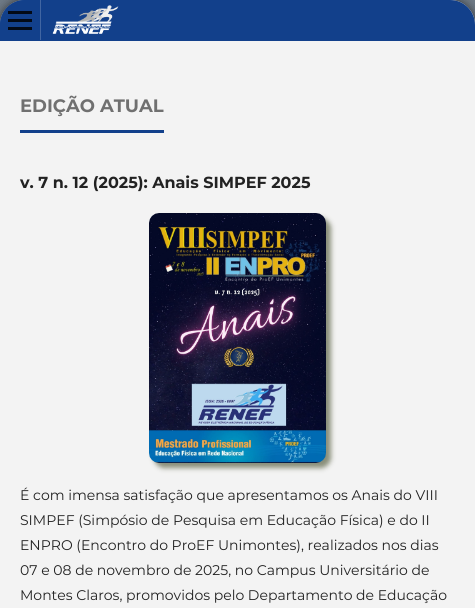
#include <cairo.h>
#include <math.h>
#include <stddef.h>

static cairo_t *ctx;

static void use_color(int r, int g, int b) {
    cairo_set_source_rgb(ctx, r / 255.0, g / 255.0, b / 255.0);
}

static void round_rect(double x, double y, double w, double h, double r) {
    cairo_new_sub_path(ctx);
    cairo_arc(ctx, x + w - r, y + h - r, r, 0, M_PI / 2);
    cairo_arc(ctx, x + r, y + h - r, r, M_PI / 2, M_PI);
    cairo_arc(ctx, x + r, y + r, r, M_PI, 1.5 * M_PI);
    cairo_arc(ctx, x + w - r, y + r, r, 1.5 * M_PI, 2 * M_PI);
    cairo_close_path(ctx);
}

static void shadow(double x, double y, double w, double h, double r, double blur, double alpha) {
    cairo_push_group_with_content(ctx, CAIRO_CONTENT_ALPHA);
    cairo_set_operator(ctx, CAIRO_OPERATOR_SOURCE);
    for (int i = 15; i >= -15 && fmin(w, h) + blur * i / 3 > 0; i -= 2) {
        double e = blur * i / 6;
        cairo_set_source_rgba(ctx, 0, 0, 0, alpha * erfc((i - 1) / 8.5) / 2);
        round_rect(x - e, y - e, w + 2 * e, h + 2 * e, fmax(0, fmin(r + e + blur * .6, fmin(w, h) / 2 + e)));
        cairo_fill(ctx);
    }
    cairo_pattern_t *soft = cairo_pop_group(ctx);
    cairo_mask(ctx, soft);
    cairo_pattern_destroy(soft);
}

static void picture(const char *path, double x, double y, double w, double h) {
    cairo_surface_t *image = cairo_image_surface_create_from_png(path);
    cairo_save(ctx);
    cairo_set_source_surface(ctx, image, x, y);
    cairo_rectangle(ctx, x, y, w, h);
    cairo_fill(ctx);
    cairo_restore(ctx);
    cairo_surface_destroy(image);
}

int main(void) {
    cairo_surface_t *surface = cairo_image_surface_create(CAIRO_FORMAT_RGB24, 475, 608);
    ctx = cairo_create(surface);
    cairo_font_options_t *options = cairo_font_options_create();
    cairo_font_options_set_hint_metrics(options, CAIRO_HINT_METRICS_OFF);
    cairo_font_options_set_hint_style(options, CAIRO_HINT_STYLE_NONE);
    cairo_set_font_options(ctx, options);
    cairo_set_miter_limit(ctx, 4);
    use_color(110, 122, 134);
    cairo_paint(ctx);
    use_color(34, 34, 34);
    shadow(0, 0, 475, 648, 25, 5, 1);
    use_color(243, 243, 243);
    cairo_new_path(ctx);
    cairo_move_to(ctx, 25, 0);
    cairo_line_to(ctx, 450, 0);
    cairo_curve_to(ctx, 464, 0, 475, 11, 475, 25);
    cairo_line_to(ctx, 475, 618);
    cairo_curve_to(ctx, 475, 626.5, 468.5, 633, 460, 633);
    cairo_line_to(ctx, 15, 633);
    cairo_curve_to(ctx, 6.5, 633, 0, 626.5, 0, 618);
    cairo_line_to(ctx, 0, 25);
    cairo_curve_to(ctx, 0, 11, 11, 0, 25, 0);
    cairo_close_path(ctx);
    cairo_fill(ctx);
    use_color(18, 64, 139);
    cairo_new_path(ctx);
    cairo_move_to(ctx, 25, 0);
    cairo_line_to(ctx, 450, 0);
    cairo_curve_to(ctx, 464, 0, 475, 11, 475, 25);
    cairo_line_to(ctx, 475, 41);
    cairo_line_to(ctx, 0, 41);
    cairo_line_to(ctx, 0, 25);
    cairo_curve_to(ctx, 0, 11, 11, 0, 25, 0);
    cairo_close_path(ctx);
    cairo_fill(ctx);
    cairo_new_path(ctx);
    cairo_move_to(ctx, 25, 0);
    cairo_line_to(ctx, 440, 0);
    cairo_curve_to(ctx, 454, 0, 465, 11, 465, 25);
    cairo_line_to(ctx, 465, 40);
    cairo_line_to(ctx, 0, 40);
    cairo_line_to(ctx, 0, 25);
    cairo_curve_to(ctx, 0, 11, 11, 0, 25, 0);
    cairo_close_path(ctx);
    cairo_fill(ctx);
    use_color(65, 102, 162);
    cairo_rectangle(ctx, 40, 0, 1, 40);
    cairo_fill(ctx);
    use_color(3, 10, 22);
    cairo_rectangle(ctx, 8, 27, 24, 3);
    cairo_fill(ctx);
    cairo_rectangle(ctx, 8, 11, 24, 3);
    cairo_fill(ctx);
    cairo_rectangle(ctx, 8, 19, 24, 3);
    cairo_fill(ctx);
    picture("img1.png", 52, 5, 67, 29);
    use_color(18, 64, 139);
    cairo_rectangle(ctx, 20, 130, 144, 3);
    cairo_fill(ctx);
    cairo_select_font_face(ctx, "Montserrat", CAIRO_FONT_SLANT_NORMAL, CAIRO_FONT_WEIGHT_BOLD);
    cairo_set_font_size(ctx, 18);
    use_color(112, 112, 112);
    cairo_move_to(ctx, 20, 112);
    cairo_show_text(ctx, "EDIÇÃO ATUAL");
    cairo_set_font_size(ctx, 16);
    use_color(34, 34, 34);
    cairo_move_to(ctx, 20, 188);
    cairo_show_text(ctx, "v. 7 n. 12 (2025): Anais SIMPEF 2025");
    use_color(137, 142, 121);
    shadow(154, 218, 177, 250, 10, 2.5, 1);
    picture("img2.png", 149, 213, 177, 250);
    cairo_select_font_face(ctx, "Montserrat", CAIRO_FONT_SLANT_NORMAL, CAIRO_FONT_WEIGHT_NORMAL);
    cairo_set_font_size(ctx, 14);
    use_color(34, 34, 34);
    cairo_move_to(ctx, 20, 500);
    cairo_show_text(ctx, "É com imensa satisfação que apresentamos os Anais do VIII");
    cairo_move_to(ctx, 20, 525);
    cairo_show_text(ctx, "SIMPEF (Simpósio de Pesquisa em Educação Física) e do II");
    cairo_move_to(ctx, 20, 550);
    cairo_show_text(ctx, "ENPRO (Encontro do ProEF Unimontes), realizados nos dias");
    cairo_move_to(ctx, 20, 575);
    cairo_show_text(ctx, "07 e 08 de novembro de 2025, no Campus Universitário de");
    cairo_move_to(ctx, 20, 600);
    cairo_show_text(ctx, "Montes Claros, promovidos pelo Departamento de Educação");
    cairo_surface_write_to_png(surface, "result.png");
    cairo_font_options_destroy(options);
    cairo_destroy(ctx);
    cairo_surface_destroy(surface);
    return 0;
}
